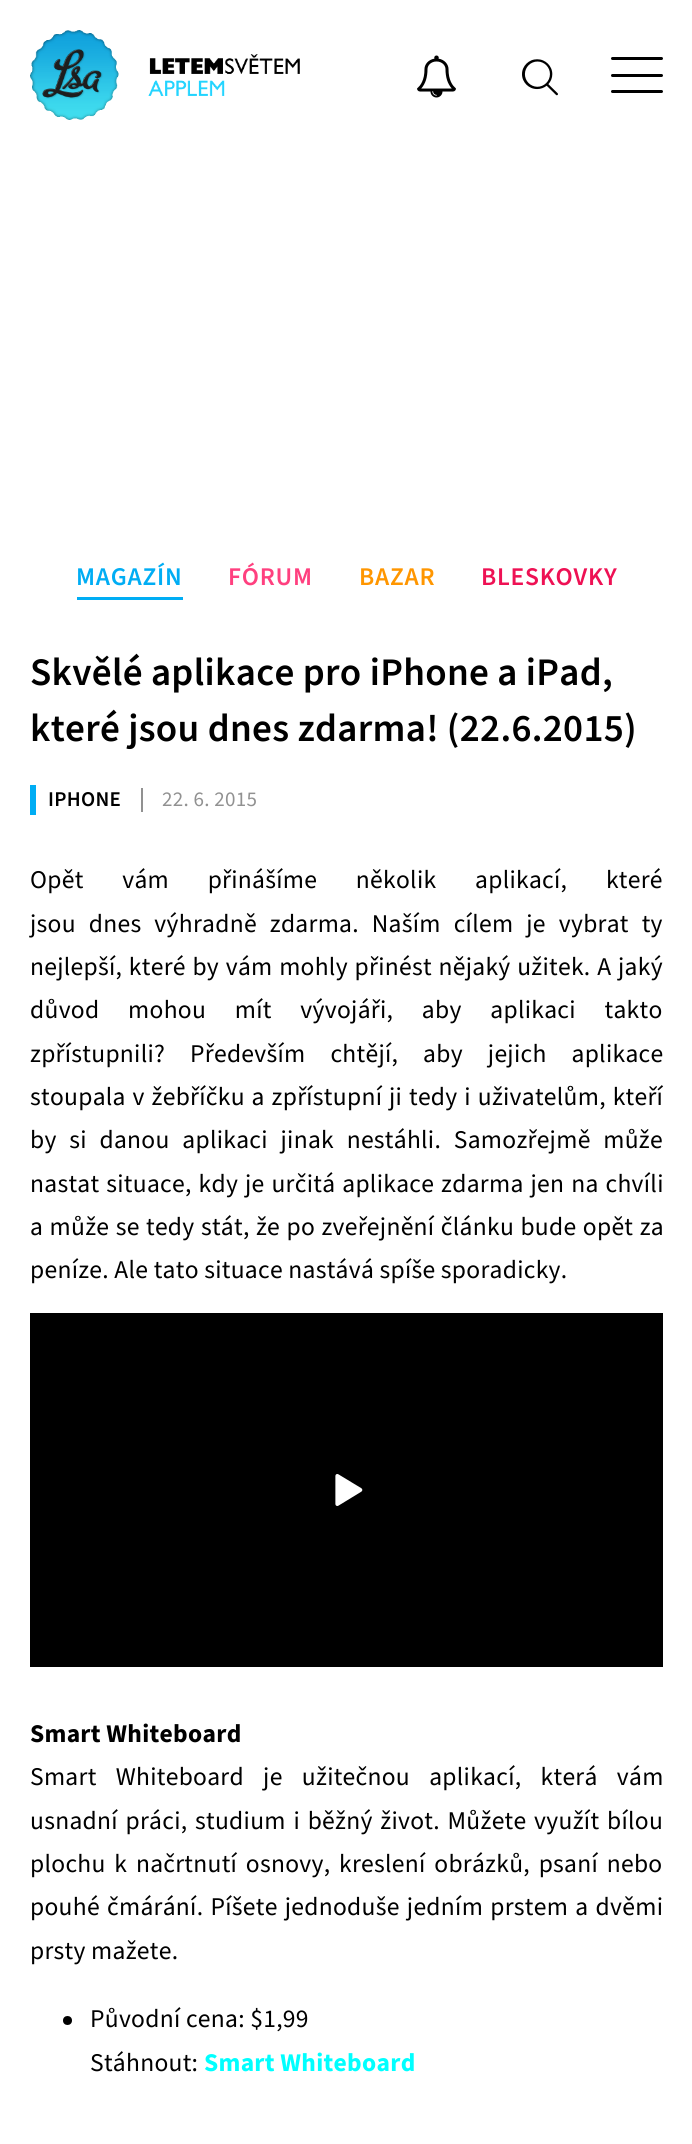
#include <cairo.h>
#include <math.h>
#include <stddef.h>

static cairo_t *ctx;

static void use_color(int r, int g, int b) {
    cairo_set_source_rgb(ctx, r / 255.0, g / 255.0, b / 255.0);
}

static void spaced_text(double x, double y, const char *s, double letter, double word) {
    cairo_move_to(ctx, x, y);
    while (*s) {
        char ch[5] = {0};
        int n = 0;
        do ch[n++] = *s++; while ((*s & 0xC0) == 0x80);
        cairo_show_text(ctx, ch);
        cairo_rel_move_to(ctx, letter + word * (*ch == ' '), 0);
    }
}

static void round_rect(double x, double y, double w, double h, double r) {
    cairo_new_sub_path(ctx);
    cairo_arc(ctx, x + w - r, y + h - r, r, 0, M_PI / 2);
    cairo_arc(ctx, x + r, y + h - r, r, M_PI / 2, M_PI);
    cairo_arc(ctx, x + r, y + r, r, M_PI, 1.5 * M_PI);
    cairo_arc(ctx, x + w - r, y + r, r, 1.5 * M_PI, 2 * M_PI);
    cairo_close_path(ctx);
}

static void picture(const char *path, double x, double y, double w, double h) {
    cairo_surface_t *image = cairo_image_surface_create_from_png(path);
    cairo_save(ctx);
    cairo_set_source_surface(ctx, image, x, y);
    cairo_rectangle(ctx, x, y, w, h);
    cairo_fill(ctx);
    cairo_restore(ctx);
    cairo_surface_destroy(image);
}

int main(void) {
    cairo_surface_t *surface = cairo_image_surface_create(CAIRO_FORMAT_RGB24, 692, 2144);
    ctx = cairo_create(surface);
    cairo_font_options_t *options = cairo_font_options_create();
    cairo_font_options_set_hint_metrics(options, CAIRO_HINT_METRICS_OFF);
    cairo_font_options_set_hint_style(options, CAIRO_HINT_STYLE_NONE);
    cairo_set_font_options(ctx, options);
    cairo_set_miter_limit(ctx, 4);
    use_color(255, 255, 255);
    cairo_paint(ctx);
    picture("img1.png", 30, 30, 89, 90);
    picture("img2.png", 148, 54, 152, 42);
    picture("img3.png", 417, 55, 39, 43);
    picture("img4.png", 522, 59, 36, 37);
    use_color(0, 0, 0);
    round_rect(611, 57, 52, 3, 1.5);
    cairo_fill(ctx);
    round_rect(611, 74, 52, 3, 1.5);
    cairo_fill(ctx);
    round_rect(611, 90, 52, 3, 1.5);
    cairo_fill(ctx);
    use_color(0, 173, 244);
    cairo_rectangle(ctx, 77, 597, 106, 3);
    cairo_fill(ctx);
    cairo_select_font_face(ctx, "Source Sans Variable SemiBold", CAIRO_FONT_SLANT_NORMAL, CAIRO_FONT_WEIGHT_NORMAL);
    cairo_set_font_size(ctx, 25.5);
    spaced_text(76, 585, "MAGAZÍN", 0.75, 0);
    use_color(255, 64, 127);
    spaced_text(228, 585, "FÓRUM", 0.75, 0);
    use_color(255, 150, 0);
    spaced_text(359, 585, "BAZAR", 0.75, 0);
    use_color(238, 17, 84);
    spaced_text(481, 585, "BLESKOVKY", 0.75, 0);
    cairo_set_font_size(ctx, 39);
    use_color(0, 0, 0);
    spaced_text(30, 685, "Skvělé aplikace pro iPhone a iPad,", 0.3, 0);
    spaced_text(30, 741, "které jsou dnes zdarma! (22.6.2015)", 0.3, 0);
    use_color(0, 173, 244);
    cairo_rectangle(ctx, 30, 785, 6, 30);
    cairo_fill(ctx);
    cairo_set_font_size(ctx, 21);
    use_color(0, 0, 0);
    spaced_text(48, 806, "IPHONE", 0.3, 0);
    use_color(145, 145, 145);
    cairo_rectangle(ctx, 141, 788, 2, 24);
    cairo_fill(ctx);
    cairo_select_font_face(ctx, "Source Sans Variable", CAIRO_FONT_SLANT_NORMAL, CAIRO_FONT_WEIGHT_NORMAL);
    spaced_text(162, 806, "22. 6. 2015", 0.3, 0);
    cairo_set_font_size(ctx, 25.5);
    use_color(0, 0, 0);
    spaced_text(30, 888, "Opět vám přinášíme několik aplikací, které", 0.3, 33.25);
    spaced_text(30, 932, "jsou dnes výhradně zdarma. Naším cílem je vybrat ty", 0.3, 7.5);
    spaced_text(30, 975, "nejlepší, které by vám mohly přinést nějaký užitek. A jaký", 0.3, 1.25);
    spaced_text(30, 1018, "důvod mohou mít vývojáři, aby aplikaci takto", 0.3, 23.25);
    spaced_text(30, 1062, "zpřístupnili? Především chtějí, aby jejich aplikace", 0.3, 19.5);
    spaced_text(30, 1105, "stoupala v žebříčku a zpřístupní ji tedy i uživatelům, kteří", 0.3, 1.4);
    spaced_text(30, 1148, "by si danou aplikaci jinak nestáhli. Samozřejmě může", 0.3, 7.25);
    spaced_text(30, 1192, "nastat situace, kdy je určitá aplikace zdarma jen na chvíli", 0.3, 1.5);
    spaced_text(30, 1235, "a může se tedy stát, že po zveřejnění článku bude opět za", 0.3, 1);
    spaced_text(30, 1278, "peníze. Ale tato situace nastává spíše sporadicky.", 0.3, 0);
    cairo_rectangle(ctx, 30, 1313, 633, 354);
    cairo_fill(ctx);
    picture("img5.png", 335, 1474, 28, 32);
    cairo_select_font_face(ctx, "Source Sans Variable", CAIRO_FONT_SLANT_NORMAL, CAIRO_FONT_WEIGHT_BOLD);
    spaced_text(30, 1742, "Smart Whiteboard", 0.3, 0);
    cairo_select_font_face(ctx, "Source Sans Variable", CAIRO_FONT_SLANT_NORMAL, CAIRO_FONT_WEIGHT_NORMAL);
    spaced_text(30, 1785, "Smart Whiteboard je užitečnou aplikací, která vám", 0.3, 13.75);
    spaced_text(30, 1829, "usnadní práci, studium i běžný život. Můžete využít bílou", 0.3, 2.25);
    spaced_text(30, 1872, "plochu k načrtnutí osnovy, kreslení obrázků, psaní nebo", 0.3, 3.25);
    spaced_text(30, 1915, "pouhé čmárání. Píšete jednoduše jedním prstem a dvěmi", 0.3, 1.75);
    spaced_text(30, 1959, "prsty mažete.", 0.3, 0);
    cairo_new_path(ctx);
    cairo_arc(ctx, 67.5, 2020.5, 4.5, 0, 2 * M_PI);
    cairo_fill(ctx);
    spaced_text(90, 2027, "Původní cena: $1,99", 0.3, 0);
    spaced_text(90, 2071, "Stáhnout:", 0.3, 0);
    cairo_select_font_face(ctx, "Source Sans Variable", CAIRO_FONT_SLANT_NORMAL, CAIRO_FONT_WEIGHT_BOLD);
    use_color(0, 255, 255);
    spaced_text(204, 2071, "Smart Whiteboard", 0.3, 0);
    cairo_surface_write_to_png(surface, "result.png");
    cairo_font_options_destroy(options);
    cairo_destroy(ctx);
    cairo_surface_destroy(surface);
    return 0;
}
